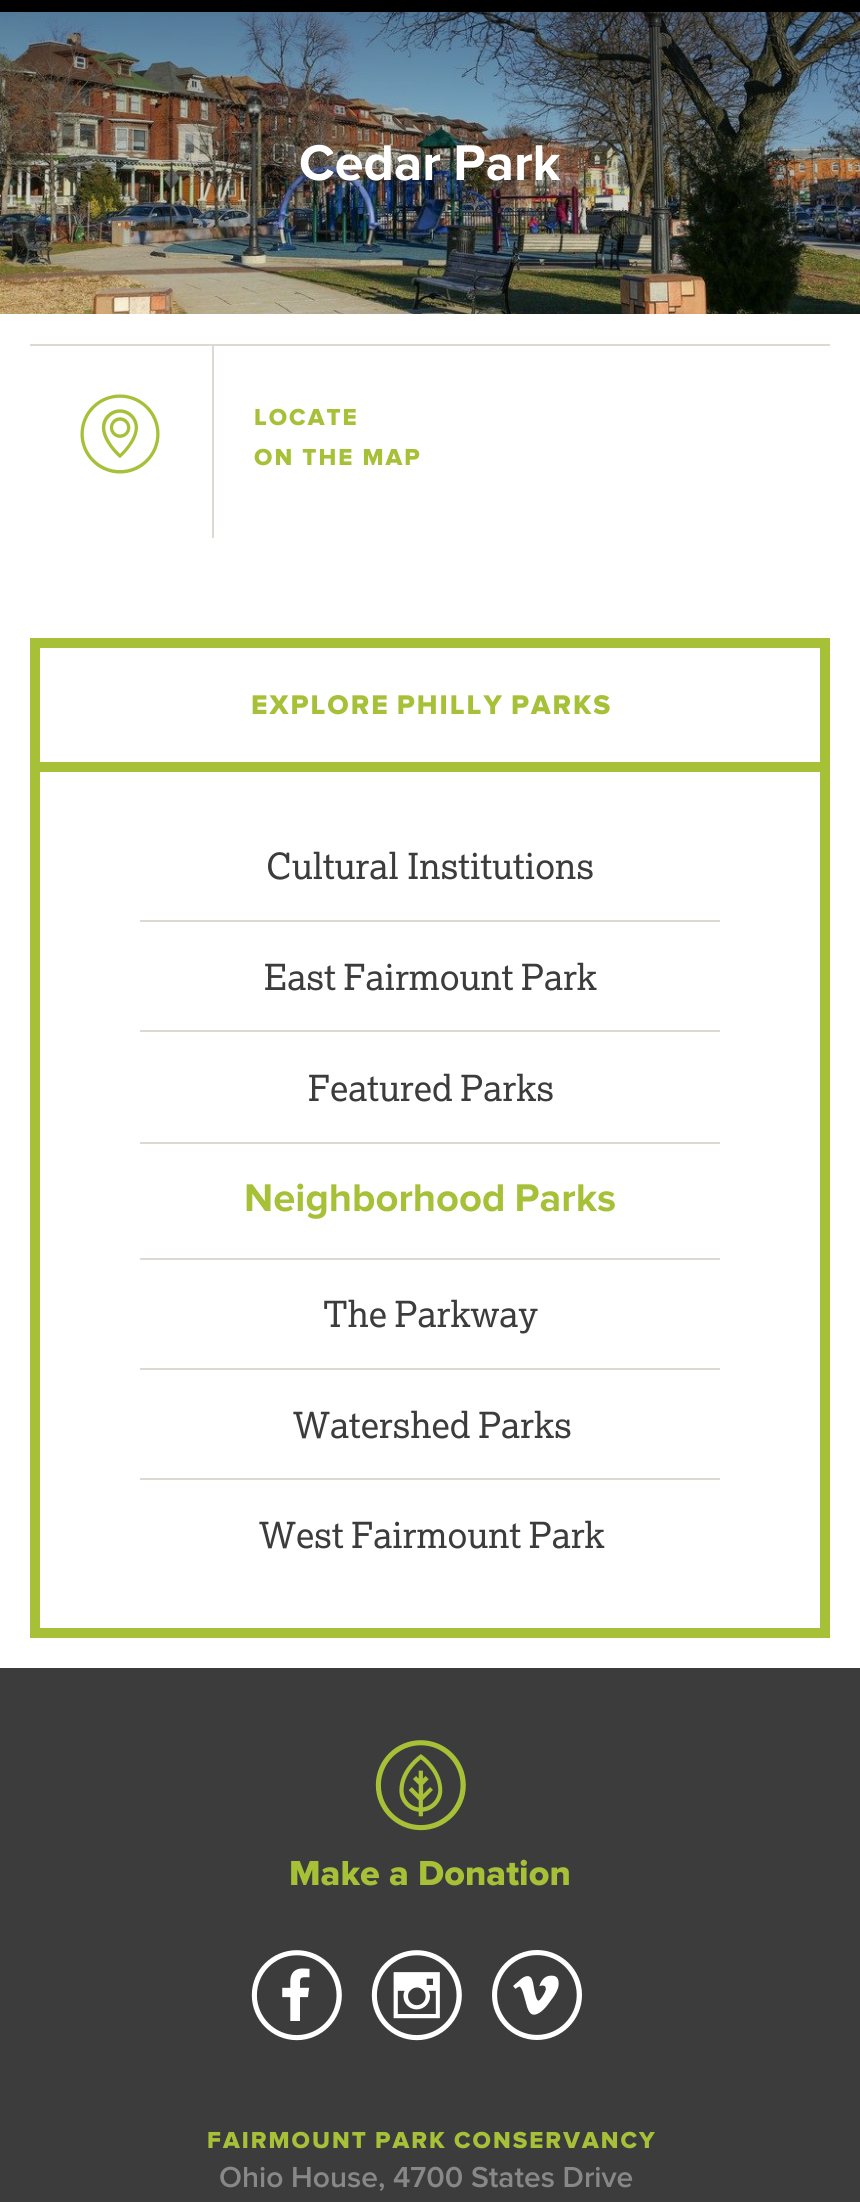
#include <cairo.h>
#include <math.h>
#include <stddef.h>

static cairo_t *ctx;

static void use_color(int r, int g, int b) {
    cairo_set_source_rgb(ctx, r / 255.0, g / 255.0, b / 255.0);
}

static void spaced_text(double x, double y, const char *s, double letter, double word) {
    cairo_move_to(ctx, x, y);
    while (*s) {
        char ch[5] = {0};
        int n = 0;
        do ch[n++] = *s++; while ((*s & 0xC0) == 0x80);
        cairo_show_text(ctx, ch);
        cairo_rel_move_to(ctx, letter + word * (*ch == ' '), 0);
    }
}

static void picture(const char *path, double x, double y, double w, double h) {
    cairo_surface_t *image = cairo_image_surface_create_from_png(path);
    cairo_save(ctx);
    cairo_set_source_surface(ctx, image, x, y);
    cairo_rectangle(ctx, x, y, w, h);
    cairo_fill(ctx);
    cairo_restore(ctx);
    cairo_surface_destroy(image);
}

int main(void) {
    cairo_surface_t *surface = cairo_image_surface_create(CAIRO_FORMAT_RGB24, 860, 2202);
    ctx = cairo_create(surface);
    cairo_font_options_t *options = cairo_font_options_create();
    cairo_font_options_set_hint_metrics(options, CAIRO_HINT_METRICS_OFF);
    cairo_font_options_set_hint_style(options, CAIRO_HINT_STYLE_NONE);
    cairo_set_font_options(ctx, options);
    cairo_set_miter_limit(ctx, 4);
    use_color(255, 255, 255);
    cairo_paint(ctx);
    use_color(0, 0, 0);
    cairo_rectangle(ctx, 0, 0, 860, 12);
    cairo_fill(ctx);
    picture("img1.png", 0, 12, 860, 302);
    cairo_select_font_face(ctx, "Proxima Nova", CAIRO_FONT_SLANT_NORMAL, CAIRO_FONT_WEIGHT_BOLD);
    cairo_set_font_size(ctx, 52);
    use_color(255, 255, 255);
    spaced_text(299, 180, "Cedar Park", 0, -1);
    use_color(221, 217, 210);
    cairo_rectangle(ctx, 30, 344, 800, 2);
    cairo_fill(ctx);
    cairo_rectangle(ctx, 212, 346, 2, 192);
    cairo_fill(ctx);
    picture("img2.png", 80, 394, 80, 80);
    cairo_select_font_face(ctx, "Proxima Nova ExtraBold", CAIRO_FONT_SLANT_NORMAL, CAIRO_FONT_WEIGHT_NORMAL);
    cairo_set_font_size(ctx, 24);
    use_color(166, 192, 56);
    spaced_text(254, 425, "LOCATE", 2, 0);
    spaced_text(254, 465, "ON THE MAP", 2, 0);
    cairo_rectangle(ctx, 35, 643, 790, 124);
    cairo_set_line_width(ctx, 10);
    cairo_stroke(ctx);
    cairo_set_font_size(ctx, 28);
    spaced_text(251, 714, "EXPLORE PHILLY PARKS", 2, -2);
    cairo_rectangle(ctx, 820, 772, 10, 856);
    cairo_fill(ctx);
    cairo_rectangle(ctx, 40, 1628, 790, 10);
    cairo_fill(ctx);
    cairo_rectangle(ctx, 30, 772, 10, 866);
    cairo_fill(ctx);
    use_color(221, 217, 210);
    cairo_rectangle(ctx, 140, 920, 580, 2);
    cairo_fill(ctx);
    cairo_select_font_face(ctx, "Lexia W", CAIRO_FONT_SLANT_NORMAL, CAIRO_FONT_WEIGHT_NORMAL);
    cairo_set_font_size(ctx, 36);
    use_color(60, 60, 60);
    spaced_text(266, 879, "Cultural Institutions", 0, -1);
    use_color(221, 217, 210);
    cairo_rectangle(ctx, 140, 1030, 580, 2);
    cairo_fill(ctx);
    use_color(60, 60, 60);
    spaced_text(264, 990, "East Fairmount Park", 0, -2);
    use_color(221, 217, 210);
    cairo_rectangle(ctx, 140, 1142, 580, 2);
    cairo_fill(ctx);
    use_color(60, 60, 60);
    spaced_text(308, 1101, "Featured Parks", 0, -2);
    use_color(221, 217, 210);
    cairo_rectangle(ctx, 140, 1258, 580, 2);
    cairo_fill(ctx);
    cairo_select_font_face(ctx, "Proxima Nova", CAIRO_FONT_SLANT_NORMAL, CAIRO_FONT_WEIGHT_BOLD);
    cairo_set_font_size(ctx, 40);
    use_color(166, 192, 56);
    spaced_text(244, 1211, "Neighborhood Parks", 0, -1);
    use_color(221, 217, 210);
    cairo_rectangle(ctx, 140, 1368, 580, 2);
    cairo_fill(ctx);
    cairo_select_font_face(ctx, "Lexia W", CAIRO_FONT_SLANT_NORMAL, CAIRO_FONT_WEIGHT_NORMAL);
    cairo_set_font_size(ctx, 36);
    use_color(60, 60, 60);
    spaced_text(323, 1327, "The Parkway", 0, -2);
    use_color(221, 217, 210);
    cairo_rectangle(ctx, 140, 1478, 580, 2);
    cairo_fill(ctx);
    use_color(60, 60, 60);
    spaced_text(293, 1438, "Watershed Parks", 0, -2);
    spaced_text(259, 1548, "West Fairmount Park", 0, -2);
    cairo_rectangle(ctx, 0, 1668, 860, 534);
    cairo_fill(ctx);
    picture("img3.png", 375, 1740, 91, 91);
    cairo_select_font_face(ctx, "Proxima Nova ExtraBold", CAIRO_FONT_SLANT_NORMAL, CAIRO_FONT_WEIGHT_NORMAL);
    use_color(166, 192, 56);
    cairo_move_to(ctx, 289, 1885);
    cairo_show_text(ctx, "Make a Donation");
    picture("img4.png", 251, 1950, 91, 91);
    picture("img5.png", 371, 1950, 91, 91);
    picture("img6.png", 492, 1950, 90, 90);
    cairo_set_font_size(ctx, 24);
    spaced_text(207, 2148, "FAIRMOUNT PARK CONSERVANCY", 2, -1);
    cairo_select_font_face(ctx, "Proxima Nova SemiBold", CAIRO_FONT_SLANT_NORMAL, CAIRO_FONT_WEIGHT_NORMAL);
    cairo_set_font_size(ctx, 30);
    use_color(136, 136, 136);
    cairo_move_to(ctx, 219, 2187);
    cairo_show_text(ctx, "Ohio House, 4700 States Drive");
    cairo_surface_write_to_png(surface, "result.png");
    cairo_font_options_destroy(options);
    cairo_destroy(ctx);
    cairo_surface_destroy(surface);
    return 0;
}
